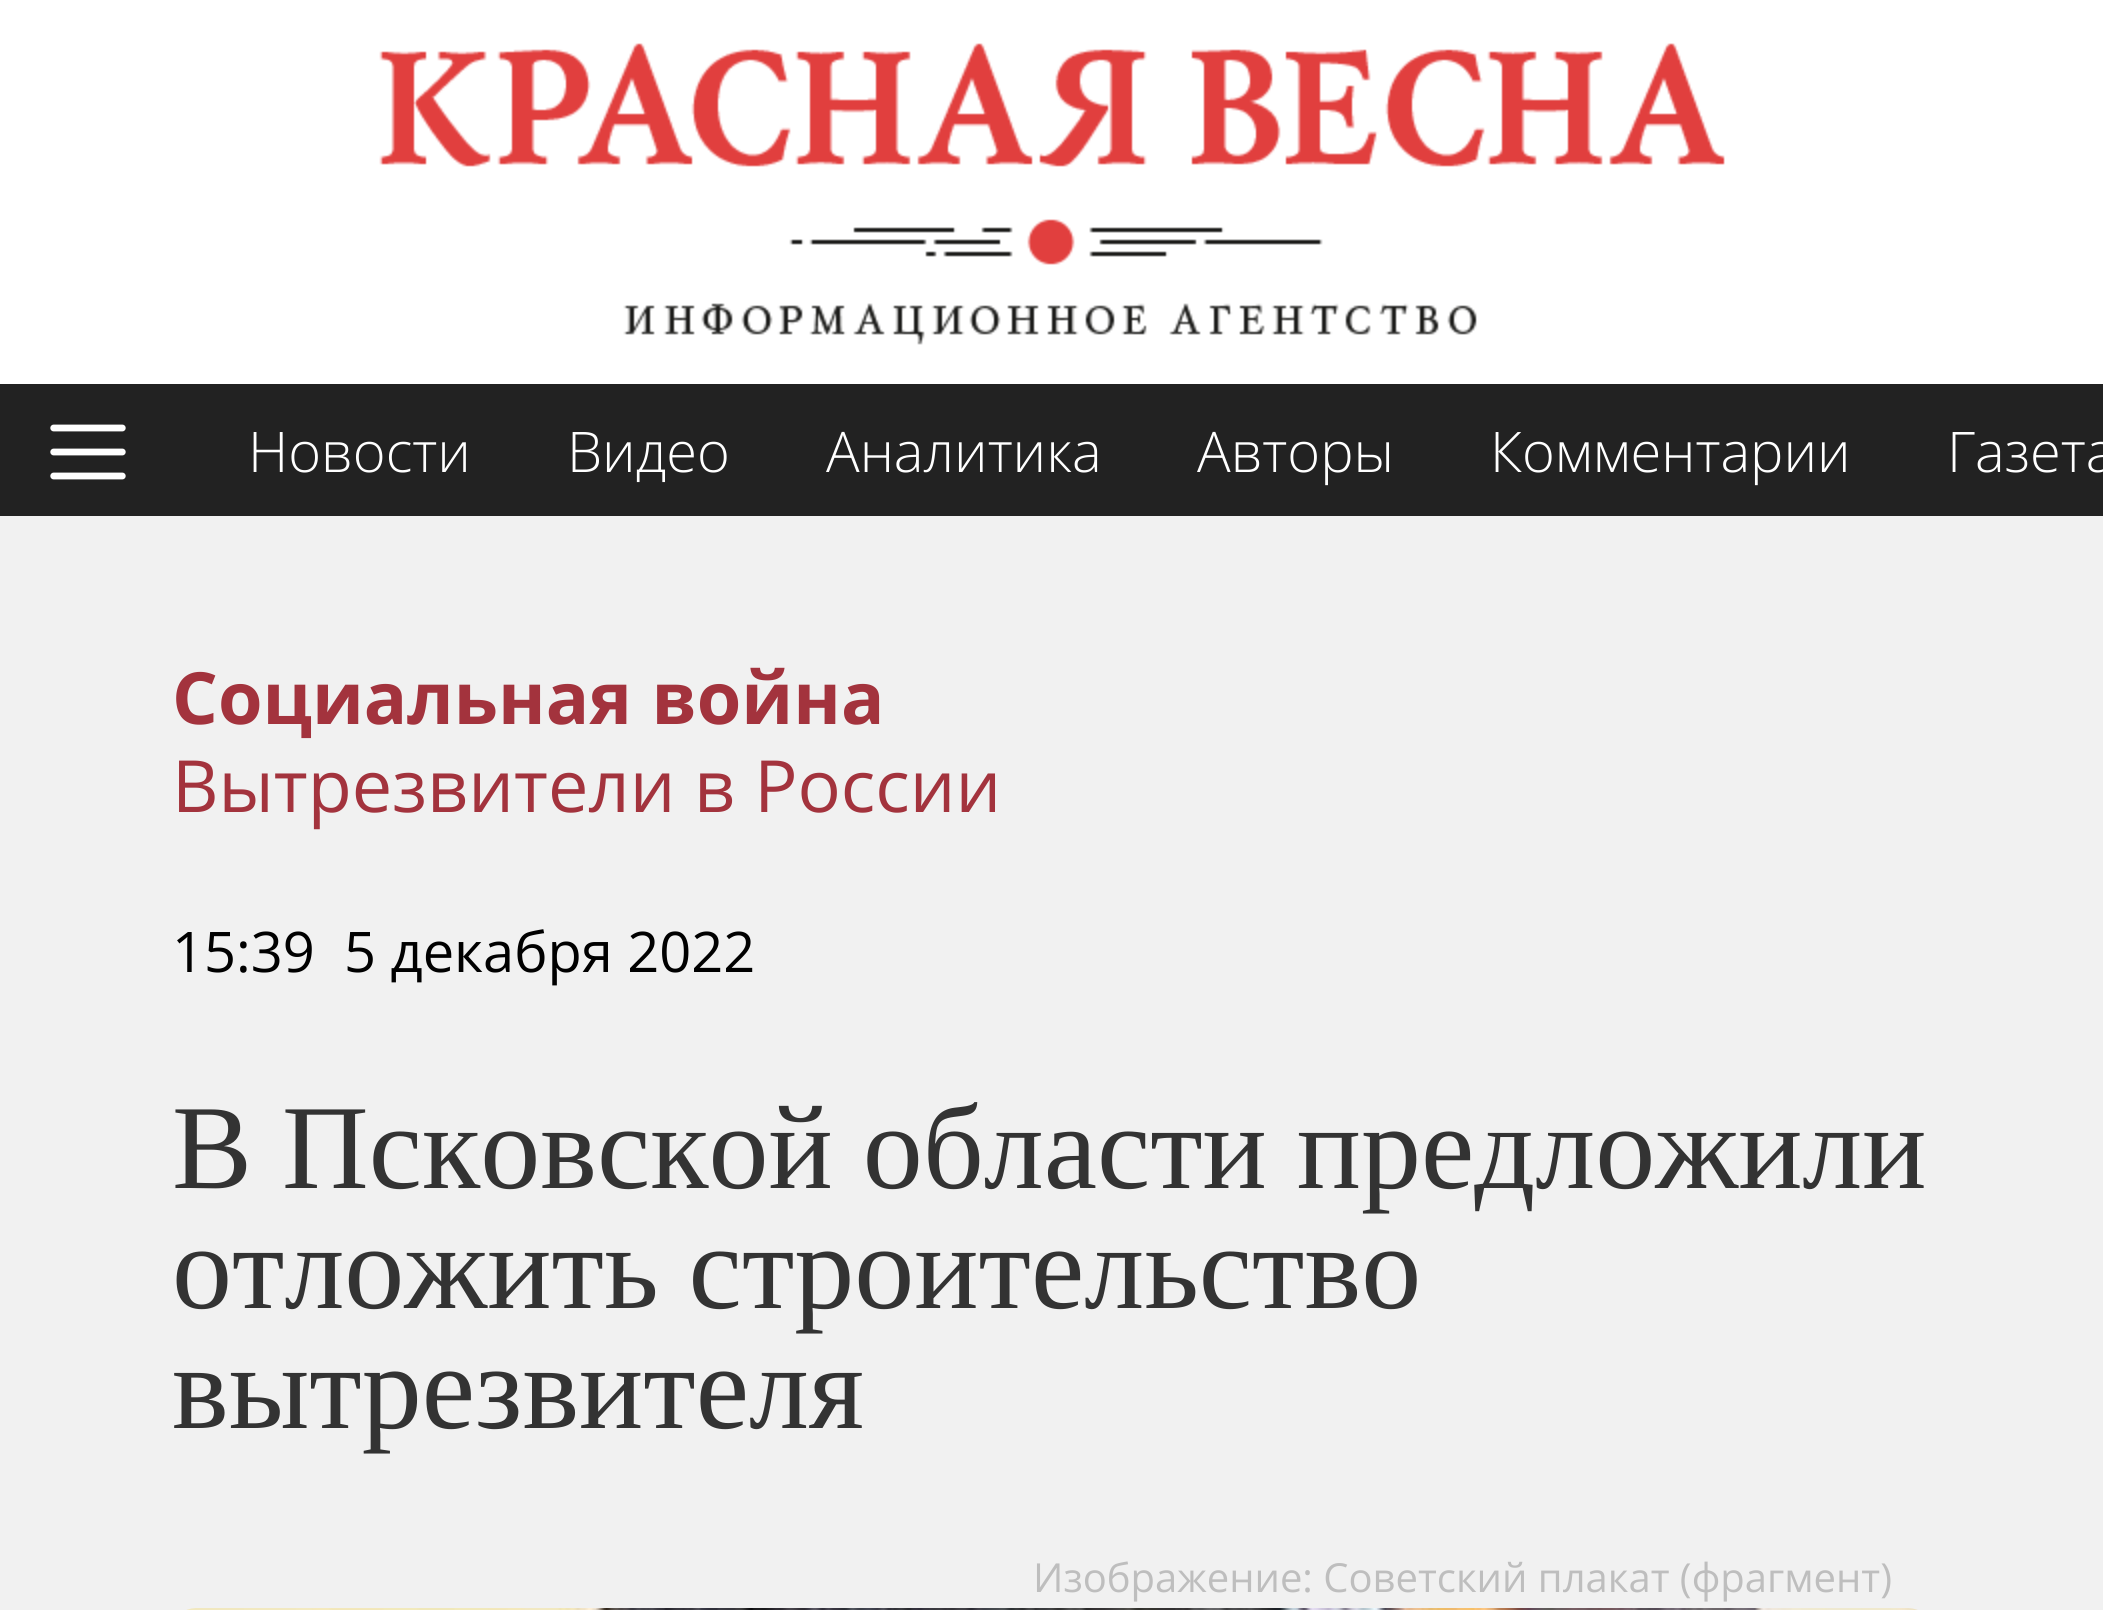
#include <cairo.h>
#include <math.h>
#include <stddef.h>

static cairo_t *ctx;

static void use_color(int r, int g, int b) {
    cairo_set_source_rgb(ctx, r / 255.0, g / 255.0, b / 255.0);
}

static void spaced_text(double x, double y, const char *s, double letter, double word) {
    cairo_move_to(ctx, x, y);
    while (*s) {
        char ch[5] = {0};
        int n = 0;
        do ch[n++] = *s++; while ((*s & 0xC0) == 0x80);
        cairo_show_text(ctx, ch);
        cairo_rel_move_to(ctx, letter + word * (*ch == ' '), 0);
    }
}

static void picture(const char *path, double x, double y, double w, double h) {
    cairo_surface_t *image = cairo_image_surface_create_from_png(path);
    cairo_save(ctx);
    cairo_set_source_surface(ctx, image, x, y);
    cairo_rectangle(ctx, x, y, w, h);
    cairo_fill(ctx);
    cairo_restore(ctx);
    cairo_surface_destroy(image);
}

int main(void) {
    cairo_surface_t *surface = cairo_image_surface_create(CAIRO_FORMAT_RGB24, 2103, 1610);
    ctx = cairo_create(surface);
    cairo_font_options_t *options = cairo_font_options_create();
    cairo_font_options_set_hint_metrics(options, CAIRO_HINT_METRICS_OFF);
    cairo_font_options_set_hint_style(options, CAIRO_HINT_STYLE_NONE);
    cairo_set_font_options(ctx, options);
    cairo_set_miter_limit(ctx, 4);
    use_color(241, 241, 241);
    cairo_paint(ctx);
    use_color(255, 255, 255);
    cairo_rectangle(ctx, 0, 0, 2103, 384);
    cairo_fill(ctx);
    picture("img1.png", 379, 43, 1346, 302);
    use_color(34, 34, 34);
    cairo_rectangle(ctx, 0, 384, 2103, 132);
    cairo_fill(ctx);
    picture("img2.png", 50, 424, 76, 56);
    cairo_select_font_face(ctx, "Open Sans Light", CAIRO_FONT_SLANT_NORMAL, CAIRO_FONT_WEIGHT_NORMAL);
    cairo_set_font_size(ctx, 56);
    use_color(255, 255, 255);
    cairo_move_to(ctx, 248, 472);
    cairo_show_text(ctx, "Новости");
    cairo_move_to(ctx, 567, 472);
    cairo_show_text(ctx, "Видео");
    cairo_move_to(ctx, 826, 472);
    cairo_show_text(ctx, "Аналитика");
    cairo_move_to(ctx, 1197, 472);
    cairo_show_text(ctx, "Авторы");
    cairo_move_to(ctx, 1490, 472);
    cairo_show_text(ctx, "Комментарии");
    cairo_move_to(ctx, 1947, 472);
    cairo_show_text(ctx, "Газета");
    cairo_select_font_face(ctx, "Open Sans", CAIRO_FONT_SLANT_NORMAL, CAIRO_FONT_WEIGHT_BOLD);
    cairo_set_font_size(ctx, 72);
    use_color(163, 51, 61);
    spaced_text(172, 724, "Социальная война", 0, 1);
    cairo_select_font_face(ctx, "Open Sans", CAIRO_FONT_SLANT_NORMAL, CAIRO_FONT_WEIGHT_NORMAL);
    cairo_move_to(ctx, 172, 812);
    cairo_show_text(ctx, "Вытрезвители в России");
    cairo_set_font_size(ctx, 56);
    use_color(0, 0, 0);
    cairo_move_to(ctx, 172, 972);
    cairo_show_text(ctx, "15:39  5 декабря 2022");
    cairo_select_font_face(ctx, "Liberation Serif", CAIRO_FONT_SLANT_NORMAL, CAIRO_FONT_WEIGHT_NORMAL);
    cairo_set_font_size(ctx, 120);
    use_color(51, 51, 51);
    cairo_move_to(ctx, 172, 1188);
    cairo_show_text(ctx, "В Псковской области предложили");
    cairo_move_to(ctx, 172, 1308);
    cairo_show_text(ctx, "отложить строительство");
    cairo_move_to(ctx, 172, 1428);
    cairo_show_text(ctx, "вытрезвителя");
    cairo_select_font_face(ctx, "Open Sans", CAIRO_FONT_SLANT_NORMAL, CAIRO_FONT_WEIGHT_NORMAL);
    cairo_set_font_size(ctx, 40);
    use_color(190, 190, 190);
    cairo_move_to(ctx, 1033, 1592);
    cairo_show_text(ctx, "Изображение: Советский плакат (фрагмент)");
    picture("img3.png", 186, 1608, 1732, 2);
    cairo_surface_write_to_png(surface, "result.png");
    cairo_font_options_destroy(options);
    cairo_destroy(ctx);
    cairo_surface_destroy(surface);
    return 0;
}
